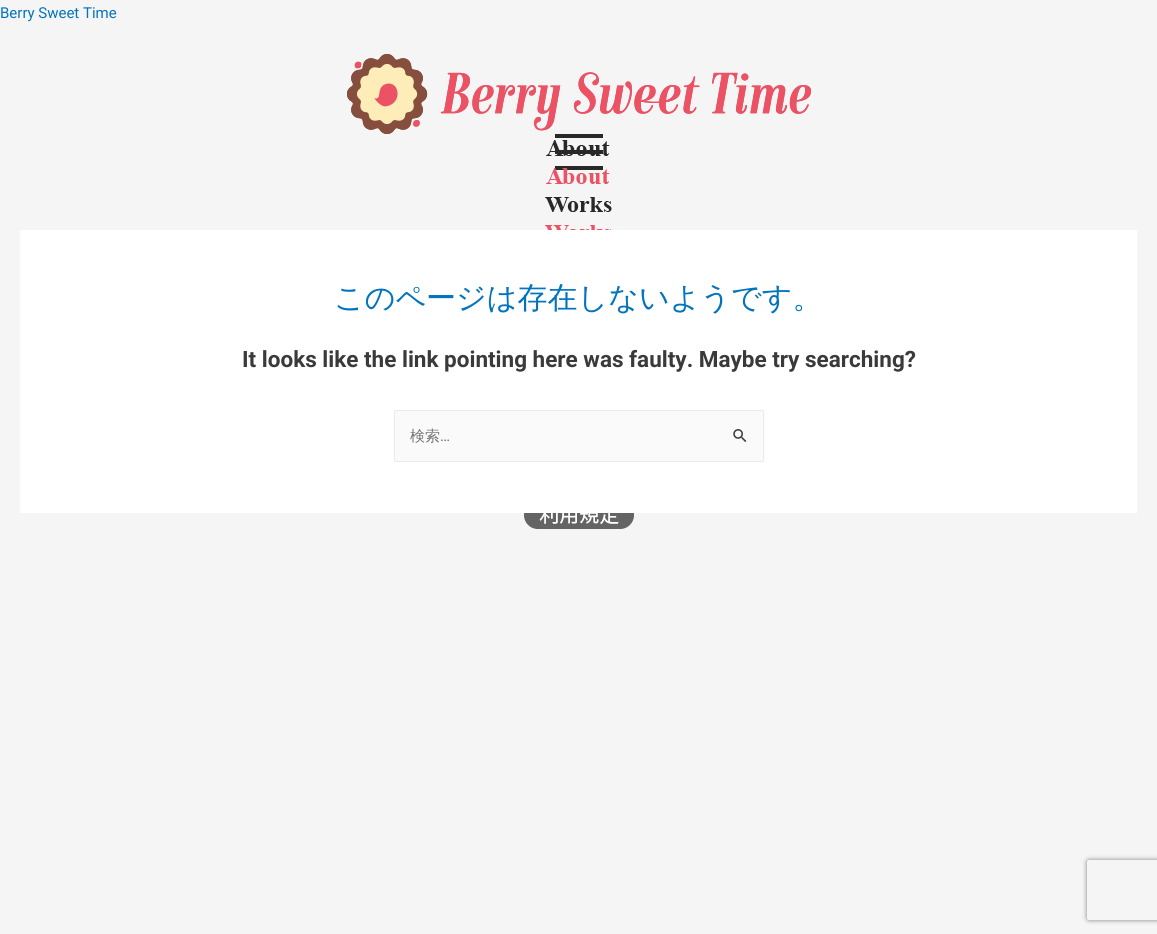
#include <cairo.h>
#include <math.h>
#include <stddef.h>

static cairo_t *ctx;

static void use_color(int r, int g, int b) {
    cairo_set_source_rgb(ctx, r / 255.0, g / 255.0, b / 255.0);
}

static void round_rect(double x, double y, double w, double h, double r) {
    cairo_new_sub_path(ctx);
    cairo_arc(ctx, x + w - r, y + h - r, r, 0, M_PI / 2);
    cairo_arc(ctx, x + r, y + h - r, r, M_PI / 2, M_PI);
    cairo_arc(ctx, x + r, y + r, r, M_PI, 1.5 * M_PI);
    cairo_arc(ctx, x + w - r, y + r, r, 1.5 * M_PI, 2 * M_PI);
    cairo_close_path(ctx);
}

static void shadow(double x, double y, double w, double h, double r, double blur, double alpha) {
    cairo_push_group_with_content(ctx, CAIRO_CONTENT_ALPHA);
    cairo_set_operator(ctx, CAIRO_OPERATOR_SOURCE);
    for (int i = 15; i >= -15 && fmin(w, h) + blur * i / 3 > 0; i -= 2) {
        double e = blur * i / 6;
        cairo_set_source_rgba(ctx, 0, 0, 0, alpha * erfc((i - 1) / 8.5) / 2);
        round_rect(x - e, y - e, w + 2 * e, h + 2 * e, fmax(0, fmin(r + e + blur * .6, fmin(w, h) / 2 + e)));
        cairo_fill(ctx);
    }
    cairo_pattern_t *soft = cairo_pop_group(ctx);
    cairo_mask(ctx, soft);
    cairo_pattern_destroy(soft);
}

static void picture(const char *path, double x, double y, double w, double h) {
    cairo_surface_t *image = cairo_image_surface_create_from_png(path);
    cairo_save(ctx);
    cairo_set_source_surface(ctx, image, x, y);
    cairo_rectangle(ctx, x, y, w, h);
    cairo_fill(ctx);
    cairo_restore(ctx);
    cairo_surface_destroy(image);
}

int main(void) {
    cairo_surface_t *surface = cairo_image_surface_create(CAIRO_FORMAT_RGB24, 1157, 934);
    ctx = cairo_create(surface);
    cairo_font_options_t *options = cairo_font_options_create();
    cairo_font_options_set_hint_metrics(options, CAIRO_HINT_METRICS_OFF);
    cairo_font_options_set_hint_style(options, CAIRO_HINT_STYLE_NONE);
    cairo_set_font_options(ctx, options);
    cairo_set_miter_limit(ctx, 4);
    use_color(245, 245, 245);
    cairo_paint(ctx);
    cairo_select_font_face(ctx, "Roboto", CAIRO_FONT_SLANT_NORMAL, CAIRO_FONT_WEIGHT_NORMAL);
    cairo_set_font_size(ctx, 15);
    use_color(2, 116, 190);
    cairo_move_to(ctx, 0, 18);
    cairo_show_text(ctx, "Berry Sweet Time");
    picture("img1.png", 347, 54, 464, 80);
    picture("img2.png", 555, 134, 48, 36);
    picture("img3.png", 347, 54, 464, 80);
    picture("img4.png", 546, 140, 64, 16);
    picture("img5.png", 546, 168, 64, 16);
    picture("img6.png", 545, 197, 67, 15);
    picture("img7.png", 545, 225, 66, 5);
    picture("img8.png", 524, 513, 110, 16);
    use_color(255, 255, 255);
    cairo_rectangle(ctx, 20, 230, 1117, 283);
    cairo_fill(ctx);
    cairo_select_font_face(ctx, "WenQuanYi Zen Hei Medium", CAIRO_FONT_SLANT_NORMAL, CAIRO_FONT_WEIGHT_NORMAL);
    cairo_set_font_size(ctx, 30);
    use_color(2, 116, 190);
    cairo_move_to(ctx, 334, 308);
    cairo_show_text(ctx, "このページは存在しないようです。");
    cairo_select_font_face(ctx, "Roboto", CAIRO_FONT_SLANT_NORMAL, CAIRO_FONT_WEIGHT_BOLD);
    cairo_set_font_size(ctx, 22.5);
    use_color(58, 58, 58);
    cairo_move_to(ctx, 242, 367);
    cairo_show_text(ctx, "It looks like the link pointing here was faulty. Maybe try searching?");
    use_color(250, 250, 250);
    round_rect(394.5, 410.5, 369, 51, 1.5);
    cairo_fill_preserve(ctx);
    use_color(234, 234, 234);
    cairo_set_line_width(ctx, 1);
    cairo_stroke(ctx);
    cairo_select_font_face(ctx, "WenQuanYi Zen Hei Medium", CAIRO_FONT_SLANT_NORMAL, CAIRO_FONT_WEIGHT_NORMAL);
    cairo_set_font_size(ctx, 15);
    use_color(117, 117, 117);
    cairo_move_to(ctx, 410, 441);
    cairo_show_text(ctx, "検索");
    cairo_select_font_face(ctx, "Roboto", CAIRO_FONT_SLANT_NORMAL, CAIRO_FONT_WEIGHT_NORMAL);
    cairo_move_to(ctx, 440, 441);
    cairo_show_text(ctx, "…");
    picture("img9.png", 733, 429, 14, 13);
    cairo_save(ctx);
    cairo_set_fill_rule(ctx, CAIRO_FILL_RULE_EVEN_ODD);
    cairo_new_path(ctx);
    cairo_move_to(ctx, 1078, 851);
    cairo_line_to(ctx, 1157, 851);
    cairo_line_to(ctx, 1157, 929);
    cairo_line_to(ctx, 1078, 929);
    cairo_close_path(ctx);
    cairo_move_to(ctx, 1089, 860);
    cairo_line_to(ctx, 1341, 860);
    cairo_curve_to(ctx, 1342, 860, 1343, 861, 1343, 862);
    cairo_line_to(ctx, 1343, 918);
    cairo_curve_to(ctx, 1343, 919, 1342, 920, 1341, 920);
    cairo_line_to(ctx, 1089, 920);
    cairo_curve_to(ctx, 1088, 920, 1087, 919, 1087, 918);
    cairo_line_to(ctx, 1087, 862);
    cairo_curve_to(ctx, 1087, 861, 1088, 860, 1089, 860);
    cairo_close_path(ctx);
    cairo_clip(ctx);
    use_color(128, 128, 128);
    shadow(1087, 860, 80, 60, 2, 2.5, 1);
    cairo_restore(ctx);
    cairo_surface_write_to_png(surface, "result.png");
    cairo_font_options_destroy(options);
    cairo_destroy(ctx);
    cairo_surface_destroy(surface);
    return 0;
}
